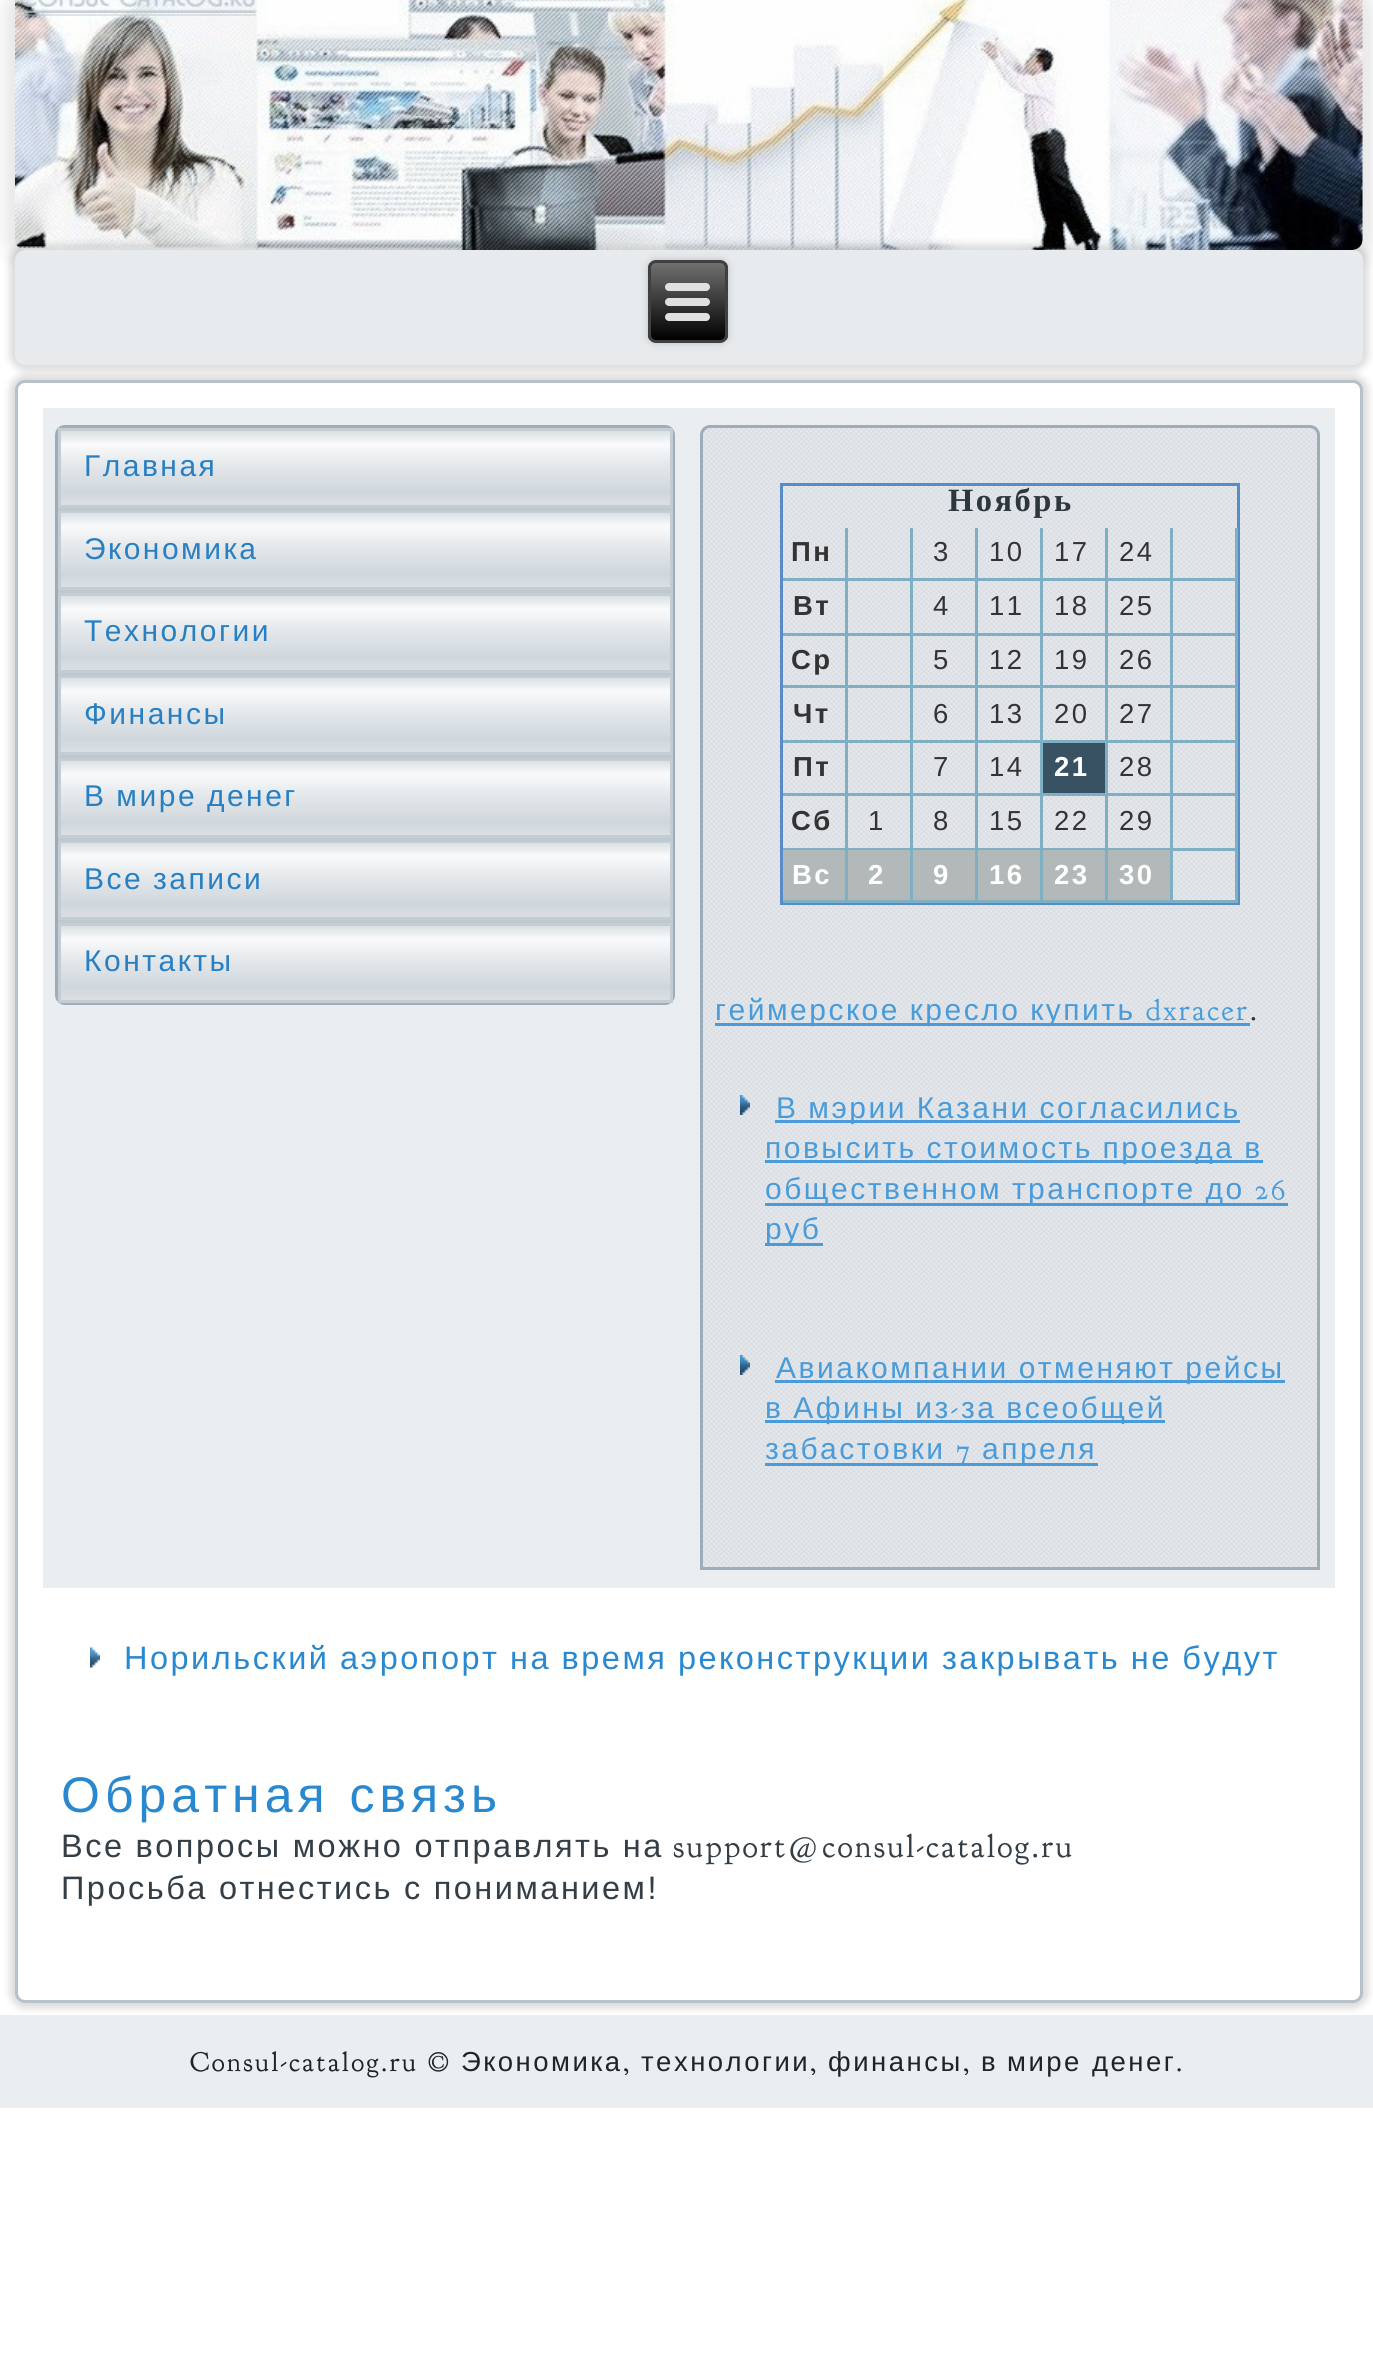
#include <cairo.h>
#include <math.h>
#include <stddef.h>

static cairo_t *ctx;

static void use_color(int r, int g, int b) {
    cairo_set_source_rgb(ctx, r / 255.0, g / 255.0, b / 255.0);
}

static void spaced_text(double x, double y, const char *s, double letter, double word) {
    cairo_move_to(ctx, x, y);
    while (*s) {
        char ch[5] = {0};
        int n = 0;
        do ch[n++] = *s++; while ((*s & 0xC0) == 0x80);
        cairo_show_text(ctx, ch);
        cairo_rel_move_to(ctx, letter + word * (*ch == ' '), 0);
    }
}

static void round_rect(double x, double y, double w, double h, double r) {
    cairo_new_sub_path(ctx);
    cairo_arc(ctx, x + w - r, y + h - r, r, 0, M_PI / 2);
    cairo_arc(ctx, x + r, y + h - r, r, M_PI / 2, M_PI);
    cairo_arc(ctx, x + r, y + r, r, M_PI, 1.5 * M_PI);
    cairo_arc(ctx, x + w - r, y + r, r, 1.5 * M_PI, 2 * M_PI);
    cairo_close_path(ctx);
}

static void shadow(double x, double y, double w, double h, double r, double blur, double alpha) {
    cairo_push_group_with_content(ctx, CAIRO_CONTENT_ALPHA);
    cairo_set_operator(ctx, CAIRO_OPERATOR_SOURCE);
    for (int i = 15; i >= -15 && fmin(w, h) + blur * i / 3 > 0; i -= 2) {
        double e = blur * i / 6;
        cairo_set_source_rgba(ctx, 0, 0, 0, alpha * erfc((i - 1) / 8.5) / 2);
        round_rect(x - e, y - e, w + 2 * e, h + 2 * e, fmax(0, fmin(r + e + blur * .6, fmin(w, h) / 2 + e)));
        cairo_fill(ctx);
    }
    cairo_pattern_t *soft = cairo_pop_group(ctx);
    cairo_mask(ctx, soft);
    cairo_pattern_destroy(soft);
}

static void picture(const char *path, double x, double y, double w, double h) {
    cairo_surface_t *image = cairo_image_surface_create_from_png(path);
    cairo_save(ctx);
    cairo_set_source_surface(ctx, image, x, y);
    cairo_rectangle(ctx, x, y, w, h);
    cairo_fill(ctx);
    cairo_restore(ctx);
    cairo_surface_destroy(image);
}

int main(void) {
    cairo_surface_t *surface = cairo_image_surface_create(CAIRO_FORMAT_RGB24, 1373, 2376);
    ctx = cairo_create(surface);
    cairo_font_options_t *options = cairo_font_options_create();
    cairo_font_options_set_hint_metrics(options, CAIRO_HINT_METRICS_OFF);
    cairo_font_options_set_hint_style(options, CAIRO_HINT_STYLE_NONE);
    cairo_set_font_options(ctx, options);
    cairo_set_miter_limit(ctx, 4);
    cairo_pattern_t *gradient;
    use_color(255, 255, 255);
    cairo_paint(ctx);
    use_color(0, 0, 0);
    shadow(5, -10, 1368, 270, 20, 9, 0.1);
    picture("img1.png", 15, 0, 1348, 250);
    shadow(10, 375, 1358, 1633, 15, 4, 0.15);
    use_color(255, 255, 255);
    round_rect(16.5, 381.5, 1345, 1620, 8.5);
    cairo_fill_preserve(ctx);
    use_color(182, 193, 201);
    cairo_set_line_width(ctx, 3);
    cairo_stroke(ctx);
    use_color(0, 0, 0);
    shadow(10, 245, 1358, 125, 15, 4, 0.15);
    use_color(232, 235, 238);
    round_rect(15, 250, 1348, 115, 10);
    cairo_fill(ctx);
    use_color(0, 0, 0);
    shadow(648, 260, 80, 83, 8, 4, 0.2);
    cairo_save(ctx);
    round_rect(648, 260, 80, 83, 8);
    cairo_clip(ctx);
    gradient = cairo_pattern_create_linear(688, 263, 688, 340);
    cairo_pattern_add_color_stop_rgba(gradient, 0, 0.439, 0.439, 0.439, 1);
    cairo_pattern_add_color_stop_rgba(gradient, 1, 0, 0, 0, 1);
    cairo_set_source(ctx, gradient);
    cairo_pattern_destroy(gradient);
    cairo_rectangle(ctx, 648, 263, 80, 77);
    cairo_fill(ctx);
    cairo_restore(ctx);
    round_rect(649.5, 261.5, 77, 80, 6.5);
    use_color(64, 64, 64);
    cairo_stroke(ctx);
    use_color(224, 224, 224);
    round_rect(665, 283, 45, 8, 4);
    cairo_fill(ctx);
    round_rect(665, 298, 45, 8, 4);
    cairo_fill(ctx);
    round_rect(665, 313, 45, 8, 4);
    cairo_fill(ctx);
    use_color(234, 238, 240);
    cairo_rectangle(ctx, 43, 408, 1292, 1180);
    cairo_fill(ctx);
    round_rect(56.5, 426.5, 617, 577, 8.5);
    use_color(158, 173, 183);
    cairo_stroke(ctx);
    gradient = cairo_pattern_create_linear(365, 428, 365, 508);
    cairo_pattern_add_color_stop_rgba(gradient, 0, 0.827, 0.855, 0.871, 1);
    cairo_pattern_add_color_stop_rgba(gradient, 0.2, 0.976, 0.98, 0.984, 1);
    cairo_pattern_add_color_stop_rgba(gradient, 0.5, 0.886, 0.902, 0.914, 1);
    cairo_pattern_add_color_stop_rgba(gradient, 0.8, 0.816, 0.843, 0.863, 1);
    cairo_pattern_add_color_stop_rgba(gradient, 1, 0.863, 0.882, 0.898, 1);
    cairo_set_source(ctx, gradient);
    cairo_pattern_destroy(gradient);
    cairo_rectangle(ctx, 61, 431, 609, 74);
    cairo_fill(ctx);
    cairo_rectangle(ctx, 59.5, 429.5, 612, 77);
    use_color(196, 205, 212);
    cairo_stroke(ctx);
    cairo_select_font_face(ctx, "Liberation Sans", CAIRO_FONT_SLANT_NORMAL, CAIRO_FONT_WEIGHT_NORMAL);
    cairo_set_font_size(ctx, 30);
    use_color(40, 128, 195);
    spaced_text(84, 476, "Главная", 2.5, 0);
    gradient = cairo_pattern_create_linear(365, 510, 365, 590);
    cairo_pattern_add_color_stop_rgba(gradient, 0, 0.827, 0.855, 0.871, 1);
    cairo_pattern_add_color_stop_rgba(gradient, 0.2, 0.976, 0.98, 0.984, 1);
    cairo_pattern_add_color_stop_rgba(gradient, 0.5, 0.886, 0.902, 0.914, 1);
    cairo_pattern_add_color_stop_rgba(gradient, 0.8, 0.816, 0.843, 0.863, 1);
    cairo_pattern_add_color_stop_rgba(gradient, 1, 0.863, 0.882, 0.898, 1);
    cairo_set_source(ctx, gradient);
    cairo_pattern_destroy(gradient);
    cairo_rectangle(ctx, 61, 513, 609, 74);
    cairo_fill(ctx);
    cairo_rectangle(ctx, 59.5, 511.5, 612, 77);
    use_color(196, 205, 212);
    cairo_stroke(ctx);
    use_color(190, 200, 207);
    cairo_rectangle(ctx, 58, 508, 615, 3);
    cairo_fill(ctx);
    use_color(40, 128, 195);
    spaced_text(84, 559, "Экономика", 2.5, 0);
    use_color(190, 200, 207);
    cairo_rectangle(ctx, 58, 590, 615, 3);
    cairo_fill(ctx);
    gradient = cairo_pattern_create_linear(365, 593, 365, 673);
    cairo_pattern_add_color_stop_rgba(gradient, 0, 0.827, 0.855, 0.871, 1);
    cairo_pattern_add_color_stop_rgba(gradient, 0.2, 0.976, 0.98, 0.984, 1);
    cairo_pattern_add_color_stop_rgba(gradient, 0.5, 0.886, 0.902, 0.914, 1);
    cairo_pattern_add_color_stop_rgba(gradient, 0.8, 0.816, 0.843, 0.863, 1);
    cairo_pattern_add_color_stop_rgba(gradient, 1, 0.863, 0.882, 0.898, 1);
    cairo_set_source(ctx, gradient);
    cairo_pattern_destroy(gradient);
    cairo_rectangle(ctx, 61, 596, 609, 74);
    cairo_fill(ctx);
    cairo_rectangle(ctx, 59.5, 594.5, 612, 77);
    use_color(196, 205, 212);
    cairo_stroke(ctx);
    use_color(40, 128, 195);
    spaced_text(84, 641, "Технологии", 2.5, 0);
    gradient = cairo_pattern_create_linear(365, 675, 365, 755);
    cairo_pattern_add_color_stop_rgba(gradient, 0, 0.827, 0.855, 0.871, 1);
    cairo_pattern_add_color_stop_rgba(gradient, 0.2, 0.976, 0.98, 0.984, 1);
    cairo_pattern_add_color_stop_rgba(gradient, 0.5, 0.886, 0.902, 0.914, 1);
    cairo_pattern_add_color_stop_rgba(gradient, 0.8, 0.816, 0.843, 0.863, 1);
    cairo_pattern_add_color_stop_rgba(gradient, 1, 0.863, 0.882, 0.898, 1);
    cairo_set_source(ctx, gradient);
    cairo_pattern_destroy(gradient);
    cairo_rectangle(ctx, 61, 678, 609, 74);
    cairo_fill(ctx);
    cairo_rectangle(ctx, 59.5, 676.5, 612, 77);
    use_color(196, 205, 212);
    cairo_stroke(ctx);
    use_color(190, 200, 207);
    cairo_rectangle(ctx, 58, 673, 615, 3);
    cairo_fill(ctx);
    use_color(40, 128, 195);
    spaced_text(84, 724, "Финансы", 2.5, 0);
    use_color(190, 200, 207);
    cairo_rectangle(ctx, 58, 755, 615, 3);
    cairo_fill(ctx);
    gradient = cairo_pattern_create_linear(365, 758, 365, 838);
    cairo_pattern_add_color_stop_rgba(gradient, 0, 0.827, 0.855, 0.871, 1);
    cairo_pattern_add_color_stop_rgba(gradient, 0.2, 0.976, 0.98, 0.984, 1);
    cairo_pattern_add_color_stop_rgba(gradient, 0.5, 0.886, 0.902, 0.914, 1);
    cairo_pattern_add_color_stop_rgba(gradient, 0.8, 0.816, 0.843, 0.863, 1);
    cairo_pattern_add_color_stop_rgba(gradient, 1, 0.863, 0.882, 0.898, 1);
    cairo_set_source(ctx, gradient);
    cairo_pattern_destroy(gradient);
    cairo_rectangle(ctx, 61, 761, 609, 74);
    cairo_fill(ctx);
    cairo_rectangle(ctx, 59.5, 759.5, 612, 77);
    use_color(196, 205, 212);
    cairo_stroke(ctx);
    use_color(40, 128, 195);
    spaced_text(84, 806, "В мире денег", 2.5, -1);
    gradient = cairo_pattern_create_linear(365, 840, 365, 920);
    cairo_pattern_add_color_stop_rgba(gradient, 0, 0.827, 0.855, 0.871, 1);
    cairo_pattern_add_color_stop_rgba(gradient, 0.2, 0.976, 0.98, 0.984, 1);
    cairo_pattern_add_color_stop_rgba(gradient, 0.5, 0.886, 0.902, 0.914, 1);
    cairo_pattern_add_color_stop_rgba(gradient, 0.8, 0.816, 0.843, 0.863, 1);
    cairo_pattern_add_color_stop_rgba(gradient, 1, 0.863, 0.882, 0.898, 1);
    cairo_set_source(ctx, gradient);
    cairo_pattern_destroy(gradient);
    cairo_rectangle(ctx, 61, 843, 609, 74);
    cairo_fill(ctx);
    cairo_rectangle(ctx, 59.5, 841.5, 612, 77);
    use_color(196, 205, 212);
    cairo_stroke(ctx);
    use_color(190, 200, 207);
    cairo_rectangle(ctx, 58, 838, 615, 3);
    cairo_fill(ctx);
    use_color(40, 128, 195);
    spaced_text(84, 889, "Все записи", 2.5, -1);
    use_color(190, 200, 207);
    cairo_rectangle(ctx, 58, 920, 615, 3);
    cairo_fill(ctx);
    gradient = cairo_pattern_create_linear(365, 923, 365, 1003);
    cairo_pattern_add_color_stop_rgba(gradient, 0, 0.827, 0.855, 0.871, 1);
    cairo_pattern_add_color_stop_rgba(gradient, 0.2, 0.976, 0.98, 0.984, 1);
    cairo_pattern_add_color_stop_rgba(gradient, 0.5, 0.886, 0.902, 0.914, 1);
    cairo_pattern_add_color_stop_rgba(gradient, 0.8, 0.816, 0.843, 0.863, 1);
    cairo_pattern_add_color_stop_rgba(gradient, 1, 0.863, 0.882, 0.898, 1);
    cairo_set_source(ctx, gradient);
    cairo_pattern_destroy(gradient);
    cairo_rectangle(ctx, 61, 926, 609, 74);
    cairo_fill(ctx);
    cairo_rectangle(ctx, 59.5, 924.5, 612, 77);
    use_color(196, 205, 212);
    cairo_stroke(ctx);
    use_color(40, 128, 195);
    spaced_text(84, 971, "Контакты", 2.5, 0);
    use_color(232, 235, 238);
    cairo_new_path(ctx);
    cairo_move_to(ctx, 710, 425);
    cairo_line_to(ctx, 1310, 425);
    cairo_curve_to(ctx, 1315.5, 425, 1320, 429.5, 1320, 435);
    cairo_line_to(ctx, 1320, 1570);
    cairo_line_to(ctx, 700, 1570);
    cairo_line_to(ctx, 700, 435);
    cairo_curve_to(ctx, 700, 429.5, 704.5, 425, 710, 425);
    cairo_close_path(ctx);
    cairo_fill(ctx);
    picture("img2.png", 700, 425, 620, 1142);
    cairo_new_path(ctx);
    cairo_move_to(ctx, 710, 426.5);
    cairo_line_to(ctx, 1310, 426.5);
    cairo_curve_to(ctx, 1314.5, 426.5, 1318.5, 430.5, 1318.5, 435);
    cairo_line_to(ctx, 1318.5, 1568.5);
    cairo_line_to(ctx, 701.5, 1568.5);
    cairo_line_to(ctx, 701.5, 435);
    cairo_curve_to(ctx, 701.5, 430.5, 705.5, 426.5, 710, 426.5);
    cairo_close_path(ctx);
    use_color(158, 173, 183);
    cairo_stroke(ctx);
    cairo_rectangle(ctx, 781.5, 484.5, 457, 419);
    use_color(88, 140, 200);
    cairo_stroke(ctx);
    cairo_select_font_face(ctx, "Liberation Serif", CAIRO_FONT_SLANT_NORMAL, CAIRO_FONT_WEIGHT_BOLD);
    cairo_set_font_size(ctx, 32.5);
    use_color(46, 55, 62);
    spaced_text(948, 511, "Ноябрь", 2.5, 0);
    use_color(127, 175, 194);
    cairo_rectangle(ctx, 845, 528, 3, 52);
    cairo_fill(ctx);
    cairo_rectangle(ctx, 783, 578, 65, 3);
    cairo_fill(ctx);
    cairo_select_font_face(ctx, "Liberation Sans", CAIRO_FONT_SLANT_NORMAL, CAIRO_FONT_WEIGHT_BOLD);
    cairo_set_font_size(ctx, 27.5);
    use_color(51, 51, 51);
    spaced_text(791, 561, "Пн", 2.5, 0);
    use_color(127, 175, 194);
    cairo_rectangle(ctx, 910, 528, 3, 52);
    cairo_fill(ctx);
    cairo_rectangle(ctx, 848, 578, 65, 3);
    cairo_fill(ctx);
    cairo_rectangle(ctx, 975, 528, 3, 52);
    cairo_fill(ctx);
    cairo_rectangle(ctx, 913, 578, 65, 3);
    cairo_fill(ctx);
    cairo_select_font_face(ctx, "Liberation Sans", CAIRO_FONT_SLANT_NORMAL, CAIRO_FONT_WEIGHT_NORMAL);
    use_color(51, 51, 51);
    spaced_text(933, 561, "3", 2.5, 0);
    use_color(127, 175, 194);
    cairo_rectangle(ctx, 1040, 528, 3, 52);
    cairo_fill(ctx);
    cairo_rectangle(ctx, 978, 578, 65, 3);
    cairo_fill(ctx);
    use_color(51, 51, 51);
    spaced_text(989, 561, "10", 2.5, 0);
    use_color(127, 175, 194);
    cairo_rectangle(ctx, 1105, 528, 3, 52);
    cairo_fill(ctx);
    cairo_rectangle(ctx, 1043, 578, 65, 3);
    cairo_fill(ctx);
    use_color(51, 51, 51);
    spaced_text(1054, 561, "17", 2.5, 0);
    use_color(127, 175, 194);
    cairo_rectangle(ctx, 1170, 528, 3, 52);
    cairo_fill(ctx);
    cairo_rectangle(ctx, 1108, 578, 65, 3);
    cairo_fill(ctx);
    use_color(51, 51, 51);
    spaced_text(1119, 561, "24", 2.5, 0);
    use_color(127, 175, 194);
    cairo_rectangle(ctx, 1235, 528, 3, 52);
    cairo_fill(ctx);
    cairo_rectangle(ctx, 1173, 578, 65, 3);
    cairo_fill(ctx);
    cairo_rectangle(ctx, 845, 580, 3, 55);
    cairo_fill(ctx);
    cairo_rectangle(ctx, 783, 633, 65, 3);
    cairo_fill(ctx);
    cairo_select_font_face(ctx, "Liberation Sans", CAIRO_FONT_SLANT_NORMAL, CAIRO_FONT_WEIGHT_BOLD);
    use_color(51, 51, 51);
    spaced_text(793, 615, "Вт", 2.5, 0);
    use_color(127, 175, 194);
    cairo_rectangle(ctx, 910, 580, 3, 55);
    cairo_fill(ctx);
    cairo_rectangle(ctx, 848, 633, 65, 3);
    cairo_fill(ctx);
    cairo_rectangle(ctx, 975, 580, 3, 55);
    cairo_fill(ctx);
    cairo_rectangle(ctx, 913, 633, 65, 3);
    cairo_fill(ctx);
    cairo_select_font_face(ctx, "Liberation Sans", CAIRO_FONT_SLANT_NORMAL, CAIRO_FONT_WEIGHT_NORMAL);
    use_color(51, 51, 51);
    spaced_text(933, 615, "4", 2.5, 0);
    use_color(127, 175, 194);
    cairo_rectangle(ctx, 1040, 580, 3, 55);
    cairo_fill(ctx);
    cairo_rectangle(ctx, 978, 633, 65, 3);
    cairo_fill(ctx);
    use_color(51, 51, 51);
    spaced_text(989, 615, "11", 2.5, 0);
    use_color(127, 175, 194);
    cairo_rectangle(ctx, 1105, 580, 3, 55);
    cairo_fill(ctx);
    cairo_rectangle(ctx, 1043, 633, 65, 3);
    cairo_fill(ctx);
    use_color(51, 51, 51);
    spaced_text(1054, 615, "18", 2.5, 0);
    use_color(127, 175, 194);
    cairo_rectangle(ctx, 1170, 580, 3, 55);
    cairo_fill(ctx);
    cairo_rectangle(ctx, 1108, 633, 65, 3);
    cairo_fill(ctx);
    use_color(51, 51, 51);
    spaced_text(1119, 615, "25", 2.5, 0);
    use_color(127, 175, 194);
    cairo_rectangle(ctx, 1235, 580, 3, 55);
    cairo_fill(ctx);
    cairo_rectangle(ctx, 1173, 633, 65, 3);
    cairo_fill(ctx);
    cairo_rectangle(ctx, 845, 635, 3, 160);
    cairo_fill(ctx);
    cairo_rectangle(ctx, 783, 685, 65, 3);
    cairo_fill(ctx);
    cairo_select_font_face(ctx, "Liberation Sans", CAIRO_FONT_SLANT_NORMAL, CAIRO_FONT_WEIGHT_BOLD);
    use_color(51, 51, 51);
    spaced_text(791, 669, "Ср", 2.5, 0);
    use_color(127, 175, 194);
    cairo_rectangle(ctx, 910, 635, 3, 160);
    cairo_fill(ctx);
    cairo_rectangle(ctx, 848, 685, 65, 3);
    cairo_fill(ctx);
    cairo_rectangle(ctx, 975, 635, 3, 160);
    cairo_fill(ctx);
    cairo_rectangle(ctx, 913, 685, 65, 3);
    cairo_fill(ctx);
    cairo_select_font_face(ctx, "Liberation Sans", CAIRO_FONT_SLANT_NORMAL, CAIRO_FONT_WEIGHT_NORMAL);
    use_color(51, 51, 51);
    spaced_text(933, 669, "5", 2.5, 0);
    use_color(127, 175, 194);
    cairo_rectangle(ctx, 1040, 635, 3, 160);
    cairo_fill(ctx);
    cairo_rectangle(ctx, 978, 685, 65, 3);
    cairo_fill(ctx);
    use_color(51, 51, 51);
    spaced_text(989, 669, "12", 2.5, 0);
    use_color(127, 175, 194);
    cairo_rectangle(ctx, 1105, 635, 3, 160);
    cairo_fill(ctx);
    cairo_rectangle(ctx, 1043, 685, 65, 3);
    cairo_fill(ctx);
    use_color(51, 51, 51);
    spaced_text(1054, 669, "19", 2.5, 0);
    use_color(127, 175, 194);
    cairo_rectangle(ctx, 1170, 635, 3, 160);
    cairo_fill(ctx);
    cairo_rectangle(ctx, 1108, 685, 65, 3);
    cairo_fill(ctx);
    use_color(51, 51, 51);
    spaced_text(1119, 669, "26", 2.5, 0);
    use_color(127, 175, 194);
    cairo_rectangle(ctx, 1235, 635, 3, 160);
    cairo_fill(ctx);
    cairo_rectangle(ctx, 1173, 685, 65, 3);
    cairo_fill(ctx);
    cairo_rectangle(ctx, 783, 740, 455, 3);
    cairo_fill(ctx);
    cairo_select_font_face(ctx, "Liberation Sans", CAIRO_FONT_SLANT_NORMAL, CAIRO_FONT_WEIGHT_BOLD);
    use_color(51, 51, 51);
    spaced_text(793, 723, "Чт", 2.5, 0);
    cairo_select_font_face(ctx, "Liberation Sans", CAIRO_FONT_SLANT_NORMAL, CAIRO_FONT_WEIGHT_NORMAL);
    spaced_text(933, 723, "6", 2.5, 0);
    spaced_text(989, 723, "13", 2.5, 0);
    spaced_text(1054, 723, "20", 2.5, 0);
    spaced_text(1119, 723, "27", 2.5, 0);
    use_color(127, 175, 194);
    cairo_rectangle(ctx, 783, 793, 455, 3);
    cairo_fill(ctx);
    cairo_select_font_face(ctx, "Liberation Sans", CAIRO_FONT_SLANT_NORMAL, CAIRO_FONT_WEIGHT_BOLD);
    use_color(51, 51, 51);
    spaced_text(793, 776, "Пт", 2.5, 0);
    cairo_select_font_face(ctx, "Liberation Sans", CAIRO_FONT_SLANT_NORMAL, CAIRO_FONT_WEIGHT_NORMAL);
    spaced_text(933, 776, "7", 2.5, 0);
    spaced_text(989, 776, "14", 2.5, 0);
    use_color(57, 82, 99);
    cairo_rectangle(ctx, 1043, 743, 62, 50);
    cairo_fill(ctx);
    cairo_select_font_face(ctx, "Liberation Sans", CAIRO_FONT_SLANT_NORMAL, CAIRO_FONT_WEIGHT_BOLD);
    use_color(255, 255, 255);
    spaced_text(1054, 776, "21", 2.5, 0);
    cairo_select_font_face(ctx, "Liberation Sans", CAIRO_FONT_SLANT_NORMAL, CAIRO_FONT_WEIGHT_NORMAL);
    use_color(51, 51, 51);
    spaced_text(1119, 776, "28", 2.5, 0);
    use_color(127, 175, 194);
    cairo_rectangle(ctx, 845, 795, 3, 108);
    cairo_fill(ctx);
    cairo_rectangle(ctx, 783, 848, 65, 2);
    cairo_fill(ctx);
    cairo_select_font_face(ctx, "Liberation Sans", CAIRO_FONT_SLANT_NORMAL, CAIRO_FONT_WEIGHT_BOLD);
    use_color(51, 51, 51);
    spaced_text(791, 830, "Сб", 2.5, 0);
    use_color(127, 175, 194);
    cairo_rectangle(ctx, 910, 795, 3, 108);
    cairo_fill(ctx);
    cairo_rectangle(ctx, 848, 848, 65, 2);
    cairo_fill(ctx);
    cairo_select_font_face(ctx, "Liberation Sans", CAIRO_FONT_SLANT_NORMAL, CAIRO_FONT_WEIGHT_NORMAL);
    use_color(51, 51, 51);
    spaced_text(868, 830, "1", 2.5, 0);
    use_color(127, 175, 194);
    cairo_rectangle(ctx, 975, 795, 3, 108);
    cairo_fill(ctx);
    cairo_rectangle(ctx, 913, 848, 65, 2);
    cairo_fill(ctx);
    use_color(51, 51, 51);
    spaced_text(933, 830, "8", 2.5, 0);
    use_color(127, 175, 194);
    cairo_rectangle(ctx, 1040, 795, 3, 108);
    cairo_fill(ctx);
    cairo_rectangle(ctx, 978, 848, 65, 2);
    cairo_fill(ctx);
    use_color(51, 51, 51);
    spaced_text(989, 830, "15", 2.5, 0);
    use_color(127, 175, 194);
    cairo_rectangle(ctx, 1105, 795, 3, 108);
    cairo_fill(ctx);
    cairo_rectangle(ctx, 1043, 848, 65, 2);
    cairo_fill(ctx);
    use_color(51, 51, 51);
    spaced_text(1054, 830, "22", 2.5, 0);
    use_color(127, 175, 194);
    cairo_rectangle(ctx, 1170, 795, 3, 108);
    cairo_fill(ctx);
    cairo_rectangle(ctx, 1108, 848, 65, 2);
    cairo_fill(ctx);
    use_color(51, 51, 51);
    spaced_text(1119, 830, "29", 2.5, 0);
    use_color(127, 175, 194);
    cairo_rectangle(ctx, 1235, 795, 3, 55);
    cairo_fill(ctx);
    cairo_rectangle(ctx, 1173, 848, 65, 3);
    cairo_fill(ctx);
    use_color(179, 184, 185);
    cairo_rectangle(ctx, 783, 850, 62, 50);
    cairo_fill(ctx);
    use_color(127, 175, 194);
    cairo_rectangle(ctx, 783, 900, 390, 3);
    cairo_fill(ctx);
    cairo_select_font_face(ctx, "Liberation Sans", CAIRO_FONT_SLANT_NORMAL, CAIRO_FONT_WEIGHT_BOLD);
    use_color(255, 255, 255);
    spaced_text(792, 884, "Вс", 2.5, 0);
    use_color(179, 184, 185);
    cairo_rectangle(ctx, 848, 850, 62, 50);
    cairo_fill(ctx);
    use_color(255, 255, 255);
    spaced_text(868, 884, "2", 2.5, 0);
    use_color(179, 184, 185);
    cairo_rectangle(ctx, 913, 850, 62, 50);
    cairo_fill(ctx);
    use_color(255, 255, 255);
    spaced_text(933, 884, "9", 2.5, 0);
    use_color(179, 184, 185);
    cairo_rectangle(ctx, 978, 850, 62, 50);
    cairo_fill(ctx);
    use_color(255, 255, 255);
    spaced_text(989, 884, "16", 2.5, 0);
    use_color(179, 184, 185);
    cairo_rectangle(ctx, 1043, 850, 62, 50);
    cairo_fill(ctx);
    use_color(255, 255, 255);
    spaced_text(1054, 884, "23", 2.5, 0);
    use_color(179, 184, 185);
    cairo_rectangle(ctx, 1108, 850, 62, 50);
    cairo_fill(ctx);
    use_color(255, 255, 255);
    spaced_text(1119, 884, "30", 2.5, 0);
    use_color(127, 175, 194);
    cairo_rectangle(ctx, 1235, 850, 3, 53);
    cairo_fill(ctx);
    cairo_rectangle(ctx, 1173, 900, 65, 3);
    cairo_fill(ctx);
    use_color(73, 155, 218);
    cairo_rectangle(ctx, 715, 1023, 535, 3);
    cairo_fill(ctx);
    cairo_select_font_face(ctx, "Liberation Sans", CAIRO_FONT_SLANT_NORMAL, CAIRO_FONT_WEIGHT_NORMAL);
    cairo_set_font_size(ctx, 30);
    spaced_text(715, 1020, "геймерское кресло купить", 2.5, -1);
    cairo_select_font_face(ctx, "Goudy Bookletter 1911", CAIRO_FONT_SLANT_NORMAL, CAIRO_FONT_WEIGHT_NORMAL);
    spaced_text(1146, 1020, "dxracer", 2.5, 0);
    use_color(46, 55, 62);
    spaced_text(1250, 1020, ".", 2.5, 0);
    picture("img3.png", 740, 1095, 10, 20);
    use_color(73, 155, 218);
    cairo_rectangle(ctx, 775, 1120, 465, 3);
    cairo_fill(ctx);
    cairo_select_font_face(ctx, "Liberation Sans", CAIRO_FONT_SLANT_NORMAL, CAIRO_FONT_WEIGHT_NORMAL);
    spaced_text(776, 1118, "В мэрии Казани согласились", 2.5, -1);
    cairo_rectangle(ctx, 765, 1160, 498, 3);
    cairo_fill(ctx);
    spaced_text(765, 1158, "повысить стоимость проезда в", 2.5, -1);
    cairo_rectangle(ctx, 765, 1203, 523, 3);
    cairo_fill(ctx);
    spaced_text(765, 1199, "общественном транспорте до", 2.5, -1);
    cairo_select_font_face(ctx, "Goudy Bookletter 1911", CAIRO_FONT_SLANT_NORMAL, CAIRO_FONT_WEIGHT_NORMAL);
    spaced_text(1255, 1199, "26", 2.5, 0);
    cairo_rectangle(ctx, 765, 1243, 58, 3);
    cairo_fill(ctx);
    cairo_select_font_face(ctx, "Liberation Sans", CAIRO_FONT_SLANT_NORMAL, CAIRO_FONT_WEIGHT_NORMAL);
    spaced_text(765, 1239, "руб", 2.5, 0);
    picture("img3.png", 740, 1355, 10, 20);
    cairo_rectangle(ctx, 775, 1380, 510, 3);
    cairo_fill(ctx);
    spaced_text(776, 1378, "Авиакомпании отменяют рейсы", 2.5, -1);
    cairo_rectangle(ctx, 765, 1420, 400, 3);
    cairo_fill(ctx);
    spaced_text(765, 1418, "в Афины из", 2.5, -1);
    cairo_select_font_face(ctx, "Goudy Bookletter 1911", CAIRO_FONT_SLANT_NORMAL, CAIRO_FONT_WEIGHT_NORMAL);
    spaced_text(951, 1418, "-", 2.5, 0);
    cairo_select_font_face(ctx, "Liberation Sans", CAIRO_FONT_SLANT_NORMAL, CAIRO_FONT_WEIGHT_NORMAL);
    spaced_text(961, 1418, "за всеобщей", 2.5, -1);
    spaced_text(765, 1459, "забастовки", 2.5, 0);
    cairo_rectangle(ctx, 765, 1463, 333, 3);
    cairo_fill(ctx);
    cairo_select_font_face(ctx, "Goudy Bookletter 1911", CAIRO_FONT_SLANT_NORMAL, CAIRO_FONT_WEIGHT_NORMAL);
    spaced_text(956, 1459, "7", 2.5, 0);
    cairo_select_font_face(ctx, "Liberation Sans", CAIRO_FONT_SLANT_NORMAL, CAIRO_FONT_WEIGHT_NORMAL);
    spaced_text(982, 1459, "апреля", 2.5, 0);
    picture("img4.png", 90, 1647, 10, 21);
    cairo_set_font_size(ctx, 32.5);
    use_color(42, 136, 207);
    spaced_text(124, 1669, "Норильский аэропорт на время реконструкции закрывать не будут", 2.5, -1);
    cairo_set_font_size(ctx, 50);
    spaced_text(61, 1812, "Обратная связь", 5, 1);
    cairo_set_font_size(ctx, 32.5);
    use_color(52, 62, 70);
    spaced_text(61, 1857, "Все вопросы можно отправлять на", 2.5, -0.5);
    cairo_select_font_face(ctx, "Goudy Bookletter 1911", CAIRO_FONT_SLANT_NORMAL, CAIRO_FONT_WEIGHT_NORMAL);
    spaced_text(673, 1857, "support@consul-catalog.ru", 2.5, 0);
    cairo_select_font_face(ctx, "Liberation Sans", CAIRO_FONT_SLANT_NORMAL, CAIRO_FONT_WEIGHT_NORMAL);
    spaced_text(61, 1899, "Просьба отнестись с пониманием!", 2.5, -0.5);
    use_color(234, 238, 240);
    cairo_rectangle(ctx, 0, 2015, 1373, 93);
    cairo_fill(ctx);
    cairo_select_font_face(ctx, "Goudy Bookletter 1911", CAIRO_FONT_SLANT_NORMAL, CAIRO_FONT_WEIGHT_NORMAL);
    cairo_set_font_size(ctx, 27.5);
    use_color(30, 36, 41);
    spaced_text(190, 2071, "Consul-catalog.ru ©", 2.5, 0);
    cairo_select_font_face(ctx, "Liberation Sans", CAIRO_FONT_SLANT_NORMAL, CAIRO_FONT_WEIGHT_NORMAL);
    spaced_text(461, 2071, "Экономика", 2.5, 0);
    cairo_select_font_face(ctx, "Goudy Bookletter 1911", CAIRO_FONT_SLANT_NORMAL, CAIRO_FONT_WEIGHT_NORMAL);
    spaced_text(623, 2071, ",", 2.5, 0);
    cairo_select_font_face(ctx, "Liberation Sans", CAIRO_FONT_SLANT_NORMAL, CAIRO_FONT_WEIGHT_NORMAL);
    spaced_text(641, 2071, "технологии", 2.5, 0);
    cairo_select_font_face(ctx, "Goudy Bookletter 1911", CAIRO_FONT_SLANT_NORMAL, CAIRO_FONT_WEIGHT_NORMAL);
    spaced_text(810, 2071, ",", 2.5, 0);
    cairo_select_font_face(ctx, "Liberation Sans", CAIRO_FONT_SLANT_NORMAL, CAIRO_FONT_WEIGHT_NORMAL);
    spaced_text(828, 2071, "финансы", 2.5, 0);
    cairo_select_font_face(ctx, "Goudy Bookletter 1911", CAIRO_FONT_SLANT_NORMAL, CAIRO_FONT_WEIGHT_NORMAL);
    spaced_text(963, 2071, ",", 2.5, 0);
    cairo_select_font_face(ctx, "Liberation Sans", CAIRO_FONT_SLANT_NORMAL, CAIRO_FONT_WEIGHT_NORMAL);
    spaced_text(981, 2071, "в", 2.5, 0);
    spaced_text(1007, 2071, "мире", 2.5, 0);
    spaced_text(1092, 2071, "денег", 2.5, 0);
    cairo_select_font_face(ctx, "Goudy Bookletter 1911", CAIRO_FONT_SLANT_NORMAL, CAIRO_FONT_WEIGHT_NORMAL);
    spaced_text(1176, 2071, ".", 2.5, 0);
    cairo_surface_write_to_png(surface, "result.png");
    cairo_font_options_destroy(options);
    cairo_destroy(ctx);
    cairo_surface_destroy(surface);
    return 0;
}
